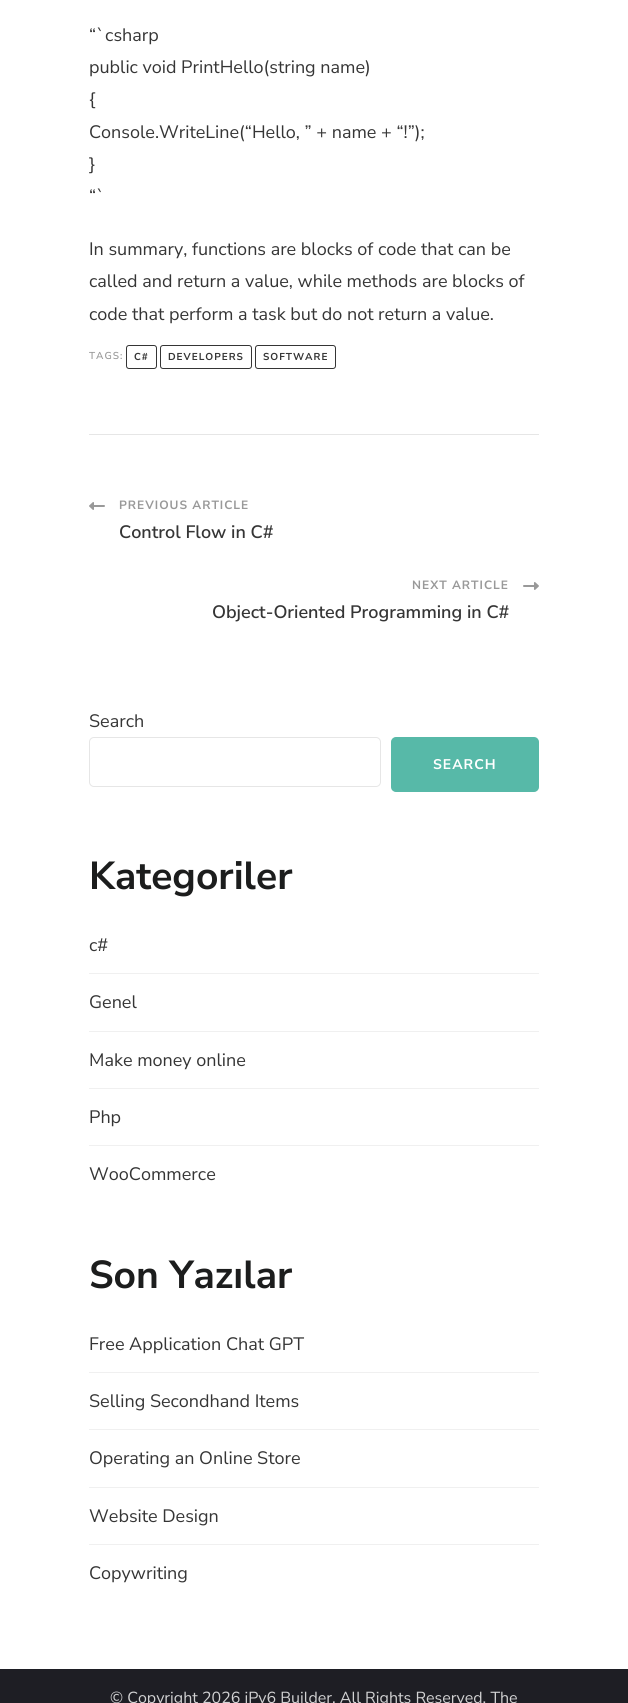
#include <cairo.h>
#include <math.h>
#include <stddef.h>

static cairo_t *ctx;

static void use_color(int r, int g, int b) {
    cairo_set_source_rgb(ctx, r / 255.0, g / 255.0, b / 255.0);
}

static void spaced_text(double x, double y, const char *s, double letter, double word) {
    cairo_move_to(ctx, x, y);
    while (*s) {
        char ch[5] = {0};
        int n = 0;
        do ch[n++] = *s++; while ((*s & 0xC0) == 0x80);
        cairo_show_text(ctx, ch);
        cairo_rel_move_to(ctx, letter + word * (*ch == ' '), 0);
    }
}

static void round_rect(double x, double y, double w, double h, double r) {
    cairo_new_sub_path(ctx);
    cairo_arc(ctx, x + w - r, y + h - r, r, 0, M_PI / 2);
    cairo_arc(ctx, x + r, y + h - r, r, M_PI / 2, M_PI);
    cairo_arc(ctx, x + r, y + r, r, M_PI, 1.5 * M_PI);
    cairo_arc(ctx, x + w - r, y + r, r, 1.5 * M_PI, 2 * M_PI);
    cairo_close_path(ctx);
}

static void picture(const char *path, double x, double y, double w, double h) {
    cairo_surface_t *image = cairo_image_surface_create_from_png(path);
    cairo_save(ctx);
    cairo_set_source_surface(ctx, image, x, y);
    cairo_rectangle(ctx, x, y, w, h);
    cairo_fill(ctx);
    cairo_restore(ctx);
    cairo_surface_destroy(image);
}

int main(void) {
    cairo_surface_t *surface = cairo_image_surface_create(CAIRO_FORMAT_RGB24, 628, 1703);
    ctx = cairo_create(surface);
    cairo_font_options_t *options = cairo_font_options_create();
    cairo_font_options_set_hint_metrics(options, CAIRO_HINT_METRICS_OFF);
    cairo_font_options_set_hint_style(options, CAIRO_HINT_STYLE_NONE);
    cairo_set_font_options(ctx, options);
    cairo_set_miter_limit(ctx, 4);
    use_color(255, 255, 255);
    cairo_paint(ctx);
    cairo_select_font_face(ctx, "Nunito Sans", CAIRO_FONT_SLANT_NORMAL, CAIRO_FONT_WEIGHT_NORMAL);
    cairo_set_font_size(ctx, 18);
    use_color(53, 53, 53);
    cairo_move_to(ctx, 89, 41);
    cairo_show_text(ctx, "“`csharp");
    cairo_move_to(ctx, 89, 73);
    cairo_show_text(ctx, "public void PrintHello(string name)");
    cairo_move_to(ctx, 89, 105);
    cairo_show_text(ctx, "{");
    cairo_move_to(ctx, 89, 138);
    cairo_show_text(ctx, "Console.WriteLine(“Hello, ” + name + “!”);");
    cairo_move_to(ctx, 89, 170);
    cairo_show_text(ctx, "}");
    cairo_move_to(ctx, 89, 202);
    cairo_show_text(ctx, "“`");
    cairo_move_to(ctx, 89, 255);
    cairo_show_text(ctx, "In summary, functions are blocks of code that can be");
    cairo_move_to(ctx, 89, 287);
    cairo_show_text(ctx, "called and return a value, while methods are blocks of");
    cairo_move_to(ctx, 89, 320);
    cairo_show_text(ctx, "code that perform a task but do not return a value.");
    cairo_select_font_face(ctx, "Nunito Sans SemiBold", CAIRO_FONT_SLANT_NORMAL, CAIRO_FONT_WEIGHT_NORMAL);
    cairo_set_font_size(ctx, 10);
    use_color(153, 153, 153);
    spaced_text(89, 359, "TAGS:", 1, 0);
    round_rect(126.5, 345.5, 30, 23, 2.5);
    use_color(53, 53, 53);
    cairo_set_line_width(ctx, 1);
    cairo_stroke(ctx);
    cairo_select_font_face(ctx, "Nunito Sans", CAIRO_FONT_SLANT_NORMAL, CAIRO_FONT_WEIGHT_BOLD);
    spaced_text(134, 360, "C#", 1, 0);
    round_rect(160.5, 345.5, 91, 23, 2.5);
    cairo_stroke(ctx);
    spaced_text(168, 360, "DEVELOPERS", 1, 0);
    round_rect(255.5, 345.5, 80, 23, 2.5);
    cairo_stroke(ctx);
    spaced_text(263, 360, "SOFTWARE", 1, 0);
    use_color(230, 230, 230);
    cairo_rectangle(ctx, 89, 434, 450, 1);
    cairo_fill(ctx);
    picture("img1.png", 89, 502, 16, 8);
    cairo_set_font_size(ctx, 12);
    use_color(153, 153, 153);
    spaced_text(119, 509, "PREVIOUS ARTICLE", 1, 0);
    cairo_select_font_face(ctx, "Nunito Sans SemiBold", CAIRO_FONT_SLANT_NORMAL, CAIRO_FONT_WEIGHT_NORMAL);
    cairo_set_font_size(ctx, 18);
    use_color(53, 53, 53);
    cairo_move_to(ctx, 119, 538);
    cairo_show_text(ctx, "Control Flow in C#");
    cairo_select_font_face(ctx, "Nunito Sans", CAIRO_FONT_SLANT_NORMAL, CAIRO_FONT_WEIGHT_BOLD);
    cairo_set_font_size(ctx, 12);
    use_color(153, 153, 153);
    spaced_text(412, 589, "NEXT ARTICLE", 1, 0);
    picture("img2.png", 523, 582, 16, 8);
    cairo_select_font_face(ctx, "Nunito Sans SemiBold", CAIRO_FONT_SLANT_NORMAL, CAIRO_FONT_WEIGHT_NORMAL);
    cairo_set_font_size(ctx, 18);
    use_color(53, 53, 53);
    cairo_move_to(ctx, 212, 618);
    cairo_show_text(ctx, "Object-Oriented Programming in C#");
    cairo_select_font_face(ctx, "Nunito Sans", CAIRO_FONT_SLANT_NORMAL, CAIRO_FONT_WEIGHT_NORMAL);
    cairo_move_to(ctx, 89, 727);
    cairo_show_text(ctx, "Search");
    round_rect(89.5, 737.5, 291, 49, 4.5);
    use_color(230, 230, 230);
    cairo_stroke(ctx);
    use_color(87, 185, 168);
    round_rect(392, 738, 146, 53, 4);
    cairo_fill_preserve(ctx);
    cairo_set_line_width(ctx, 2);
    cairo_stroke(ctx);
    cairo_select_font_face(ctx, "Nunito Sans", CAIRO_FONT_SLANT_NORMAL, CAIRO_FONT_WEIGHT_BOLD);
    cairo_set_font_size(ctx, 14);
    use_color(255, 255, 255);
    spaced_text(433, 769, "SEARCH", 1, 0);
    cairo_set_font_size(ctx, 39);
    use_color(28, 29, 29);
    cairo_move_to(ctx, 89, 889);
    cairo_show_text(ctx, "Kategoriler");
    use_color(240, 240, 240);
    cairo_rectangle(ctx, 89, 973, 450, 1);
    cairo_fill(ctx);
    cairo_select_font_face(ctx, "Nunito Sans", CAIRO_FONT_SLANT_NORMAL, CAIRO_FONT_WEIGHT_NORMAL);
    cairo_set_font_size(ctx, 18);
    use_color(53, 53, 53);
    cairo_move_to(ctx, 89, 951);
    cairo_show_text(ctx, "c#");
    use_color(240, 240, 240);
    cairo_rectangle(ctx, 89, 1031, 450, 1);
    cairo_fill(ctx);
    use_color(53, 53, 53);
    cairo_move_to(ctx, 89, 1008);
    cairo_show_text(ctx, "Genel");
    use_color(240, 240, 240);
    cairo_rectangle(ctx, 89, 1088, 450, 1);
    cairo_fill(ctx);
    use_color(53, 53, 53);
    cairo_move_to(ctx, 89, 1066);
    cairo_show_text(ctx, "Make money online");
    use_color(240, 240, 240);
    cairo_rectangle(ctx, 89, 1145, 450, 1);
    cairo_fill(ctx);
    use_color(53, 53, 53);
    cairo_move_to(ctx, 89, 1123);
    cairo_show_text(ctx, "Php");
    cairo_move_to(ctx, 89, 1180);
    cairo_show_text(ctx, "WooCommerce");
    cairo_select_font_face(ctx, "Nunito Sans", CAIRO_FONT_SLANT_NORMAL, CAIRO_FONT_WEIGHT_BOLD);
    cairo_set_font_size(ctx, 39);
    use_color(28, 29, 29);
    cairo_move_to(ctx, 89, 1288);
    cairo_show_text(ctx, "Son Yazılar");
    use_color(240, 240, 240);
    cairo_rectangle(ctx, 89, 1372, 450, 1);
    cairo_fill(ctx);
    cairo_select_font_face(ctx, "Nunito Sans", CAIRO_FONT_SLANT_NORMAL, CAIRO_FONT_WEIGHT_NORMAL);
    cairo_set_font_size(ctx, 18);
    use_color(53, 53, 53);
    cairo_move_to(ctx, 89, 1350);
    cairo_show_text(ctx, "Free Application Chat GPT");
    use_color(240, 240, 240);
    cairo_rectangle(ctx, 89, 1429, 450, 1);
    cairo_fill(ctx);
    use_color(53, 53, 53);
    cairo_move_to(ctx, 89, 1407);
    cairo_show_text(ctx, "Selling Secondhand Items");
    use_color(240, 240, 240);
    cairo_rectangle(ctx, 89, 1487, 450, 1);
    cairo_fill(ctx);
    use_color(53, 53, 53);
    cairo_move_to(ctx, 89, 1464);
    cairo_show_text(ctx, "Operating an Online Store");
    use_color(240, 240, 240);
    cairo_rectangle(ctx, 89, 1544, 450, 1);
    cairo_fill(ctx);
    use_color(53, 53, 53);
    cairo_move_to(ctx, 89, 1522);
    cairo_show_text(ctx, "Website Design");
    cairo_move_to(ctx, 89, 1579);
    cairo_show_text(ctx, "Copywriting");
    use_color(30, 30, 36);
    cairo_rectangle(ctx, 0, 1669, 628, 34);
    cairo_fill(ctx);
    cairo_set_font_size(ctx, 16);
    use_color(210, 210, 211);
    cairo_move_to(ctx, 110, 1703);
    cairo_show_text(ctx, "© Copyright 2026 iPv6 Builder. All Rights Reserved. The");
    cairo_surface_write_to_png(surface, "result.png");
    cairo_font_options_destroy(options);
    cairo_destroy(ctx);
    cairo_surface_destroy(surface);
    return 0;
}
